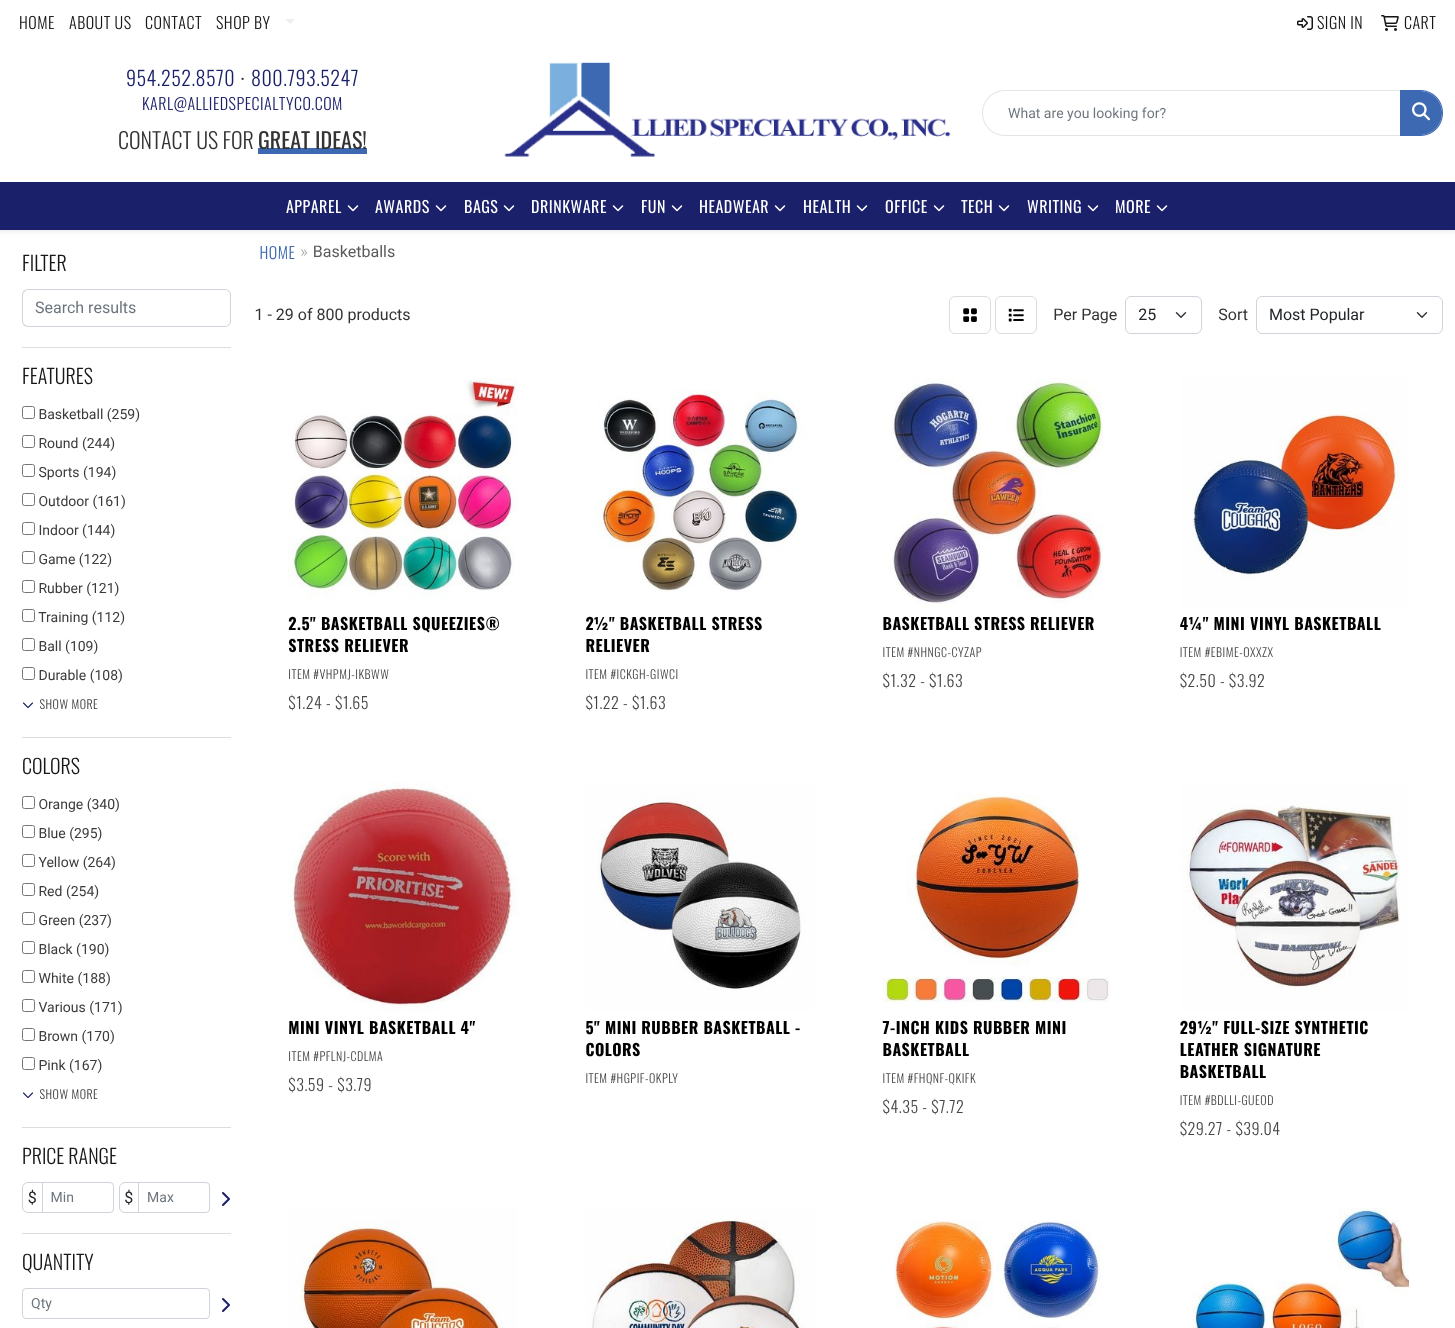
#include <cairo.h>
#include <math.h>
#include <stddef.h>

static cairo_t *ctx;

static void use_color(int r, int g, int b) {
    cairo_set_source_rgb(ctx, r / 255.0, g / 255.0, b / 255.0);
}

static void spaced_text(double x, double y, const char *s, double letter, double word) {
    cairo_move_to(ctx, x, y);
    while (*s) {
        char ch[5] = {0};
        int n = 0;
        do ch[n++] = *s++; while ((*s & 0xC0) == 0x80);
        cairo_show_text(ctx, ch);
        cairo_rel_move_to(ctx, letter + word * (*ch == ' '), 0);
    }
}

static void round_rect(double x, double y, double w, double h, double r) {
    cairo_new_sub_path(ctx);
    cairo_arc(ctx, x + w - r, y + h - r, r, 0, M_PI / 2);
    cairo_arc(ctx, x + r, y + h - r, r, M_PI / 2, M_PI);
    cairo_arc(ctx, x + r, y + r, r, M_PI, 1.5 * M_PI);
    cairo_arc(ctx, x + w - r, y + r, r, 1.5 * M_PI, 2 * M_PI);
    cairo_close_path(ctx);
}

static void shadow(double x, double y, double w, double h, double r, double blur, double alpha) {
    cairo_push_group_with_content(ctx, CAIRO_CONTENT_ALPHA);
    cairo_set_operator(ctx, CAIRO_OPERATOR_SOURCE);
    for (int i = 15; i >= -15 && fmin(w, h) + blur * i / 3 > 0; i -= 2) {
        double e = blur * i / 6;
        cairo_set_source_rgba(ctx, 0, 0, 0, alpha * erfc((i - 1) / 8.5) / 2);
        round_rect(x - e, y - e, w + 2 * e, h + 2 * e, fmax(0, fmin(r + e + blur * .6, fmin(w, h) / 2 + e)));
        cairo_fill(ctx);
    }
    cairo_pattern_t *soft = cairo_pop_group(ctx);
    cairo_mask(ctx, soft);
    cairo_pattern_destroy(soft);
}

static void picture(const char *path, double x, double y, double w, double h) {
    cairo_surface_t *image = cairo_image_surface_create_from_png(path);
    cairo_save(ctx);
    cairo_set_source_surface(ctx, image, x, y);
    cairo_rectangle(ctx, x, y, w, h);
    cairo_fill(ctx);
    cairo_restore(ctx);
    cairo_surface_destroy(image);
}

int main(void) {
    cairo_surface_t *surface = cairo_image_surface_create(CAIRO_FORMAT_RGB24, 1455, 1328);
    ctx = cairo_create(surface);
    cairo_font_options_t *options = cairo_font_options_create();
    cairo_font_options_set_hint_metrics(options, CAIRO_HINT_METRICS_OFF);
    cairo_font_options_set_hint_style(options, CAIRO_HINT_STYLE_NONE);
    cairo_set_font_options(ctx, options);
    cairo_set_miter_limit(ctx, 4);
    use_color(255, 255, 255);
    cairo_paint(ctx);
    cairo_select_font_face(ctx, "Oswald Light", CAIRO_FONT_SLANT_NORMAL, CAIRO_FONT_WEIGHT_NORMAL);
    cairo_set_font_size(ctx, 16);
    use_color(23, 23, 23);
    spaced_text(19, 29, "HOME", 0.5, 0);
    spaced_text(69, 29, "ABOUT US", 0.5, 0);
    spaced_text(145, 29, "CONTACT", 0.5, 0);
    spaced_text(216, 29, "SHOP BY", 0.5, 0);
    use_color(238, 238, 238);
    cairo_new_path(ctx);
    cairo_move_to(ctx, 285, 19);
    cairo_line_to(ctx, 295, 19);
    cairo_line_to(ctx, 290, 24);
    cairo_close_path(ctx);
    cairo_fill(ctx);
    picture("img1.png", 1297, 16, 16, 14);
    use_color(23, 23, 23);
    spaced_text(1317, 29, "SIGN IN", 0.5, 0);
    picture("img2.png", 1381, 15, 18, 16);
    spaced_text(1404, 29, "CART", 0.5, 0);
    cairo_set_font_size(ctx, 20);
    use_color(27, 32, 106);
    spaced_text(126, 86, "954.252.8570", 0.5, 0);
    cairo_select_font_face(ctx, "Roboto", CAIRO_FONT_SLANT_NORMAL, CAIRO_FONT_WEIGHT_NORMAL);
    use_color(51, 51, 51);
    cairo_move_to(ctx, 240, 86);
    cairo_show_text(ctx, "·");
    cairo_select_font_face(ctx, "Oswald Light", CAIRO_FONT_SLANT_NORMAL, CAIRO_FONT_WEIGHT_NORMAL);
    use_color(27, 32, 106);
    spaced_text(251, 86, "800.793.5247", 0.5, 0);
    cairo_set_font_size(ctx, 16);
    spaced_text(142, 110, "KARL@ALLIEDSPECIALTYCO.COM", 0.5, 0);
    cairo_set_font_size(ctx, 22);
    use_color(51, 51, 51);
    cairo_move_to(ctx, 118, 149);
    cairo_show_text(ctx, "CONTACT US FOR");
    use_color(61, 105, 178);
    cairo_rectangle(ctx, 258, 148, 109, 6);
    cairo_fill(ctx);
    cairo_select_font_face(ctx, "Oswald", CAIRO_FONT_SLANT_NORMAL, CAIRO_FONT_WEIGHT_NORMAL);
    use_color(51, 51, 51);
    cairo_move_to(ctx, 258, 149);
    cairo_show_text(ctx, "GREAT IDEAS!");
    picture("img3.png", 504, 62, 447, 95);
    cairo_new_path(ctx);
    cairo_move_to(ctx, 1005, 90.5);
    cairo_line_to(ctx, 1400.5, 90.5);
    cairo_line_to(ctx, 1400.5, 135.5);
    cairo_line_to(ctx, 1005, 135.5);
    cairo_curve_to(ctx, 992.5, 135.5, 982.5, 125.5, 982.5, 113);
    cairo_curve_to(ctx, 982.5, 100.5, 992.5, 90.5, 1005, 90.5);
    cairo_close_path(ctx);
    use_color(228, 228, 228);
    cairo_set_line_width(ctx, 1);
    cairo_stroke(ctx);
    cairo_select_font_face(ctx, "Roboto", CAIRO_FONT_SLANT_NORMAL, CAIRO_FONT_WEIGHT_NORMAL);
    cairo_set_font_size(ctx, 14);
    use_color(108, 117, 125);
    cairo_move_to(ctx, 1008, 118);
    cairo_show_text(ctx, "What are you looking for?");
    use_color(61, 105, 178);
    cairo_new_path(ctx);
    cairo_move_to(ctx, 1400, 91);
    cairo_line_to(ctx, 1420, 91);
    cairo_curve_to(ctx, 1432, 91, 1442, 101, 1442, 113);
    cairo_curve_to(ctx, 1442, 125, 1432, 135, 1420, 135);
    cairo_line_to(ctx, 1400, 135);
    cairo_close_path(ctx);
    cairo_fill(ctx);
    cairo_set_fill_rule(ctx, CAIRO_FILL_RULE_EVEN_ODD);
    cairo_new_path(ctx);
    cairo_move_to(ctx, 1400, 90);
    cairo_line_to(ctx, 1420, 90);
    cairo_curve_to(ctx, 1433, 90, 1443, 100, 1443, 113);
    cairo_curve_to(ctx, 1443, 126, 1433, 136, 1420, 136);
    cairo_line_to(ctx, 1400, 136);
    cairo_close_path(ctx);
    cairo_move_to(ctx, 1400, 91);
    cairo_line_to(ctx, 1420, 91);
    cairo_curve_to(ctx, 1432, 91, 1442, 101, 1442, 113);
    cairo_curve_to(ctx, 1442, 125, 1432, 135, 1420, 135);
    cairo_line_to(ctx, 1400, 135);
    cairo_close_path(ctx);
    cairo_fill(ctx);
    picture("img4.png", 1412, 102, 18, 19);
    use_color(0, 0, 0);
    shadow(0, 184, 1455, 48, 0, 2, 0.07);
    use_color(27, 32, 106);
    cairo_rectangle(ctx, 0, 182, 1455, 48);
    cairo_fill(ctx);
    cairo_select_font_face(ctx, "Oswald", CAIRO_FONT_SLANT_NORMAL, CAIRO_FONT_WEIGHT_NORMAL);
    cairo_set_font_size(ctx, 16);
    use_color(255, 255, 255);
    spaced_text(286, 213, "APPAREL", 0.5, 0);
    picture("img5.png", 347, 205, 12, 7);
    spaced_text(375, 213, "AWARDS", 0.5, 0);
    picture("img5.png", 435, 205, 12, 7);
    spaced_text(464, 213, "BAGS", 0.5, 0);
    picture("img5.png", 503, 205, 12, 7);
    spaced_text(531, 213, "DRINKWARE", 0.5, 0);
    picture("img5.png", 612, 205, 12, 7);
    spaced_text(641, 213, "FUN", 0.5, 0);
    picture("img5.png", 671, 205, 12, 7);
    spaced_text(699, 213, "HEADWEAR", 0.5, 0);
    picture("img5.png", 774, 205, 12, 7);
    spaced_text(803, 213, "HEALTH", 0.5, 0);
    picture("img5.png", 856, 205, 12, 7);
    spaced_text(885, 213, "OFFICE", 0.5, 0);
    picture("img5.png", 933, 205, 12, 7);
    spaced_text(961, 213, "TECH", 0.5, 0);
    picture("img5.png", 998, 205, 12, 7);
    spaced_text(1027, 213, "WRITING", 0.5, 0);
    picture("img5.png", 1087, 205, 12, 7);
    spaced_text(1115, 213, "MORE", 0.5, 0);
    picture("img5.png", 1156, 205, 12, 7);
    picture("img6.png", 22, 245, 1421, 1083);
    cairo_surface_write_to_png(surface, "result.png");
    cairo_font_options_destroy(options);
    cairo_destroy(ctx);
    cairo_surface_destroy(surface);
    return 0;
}
